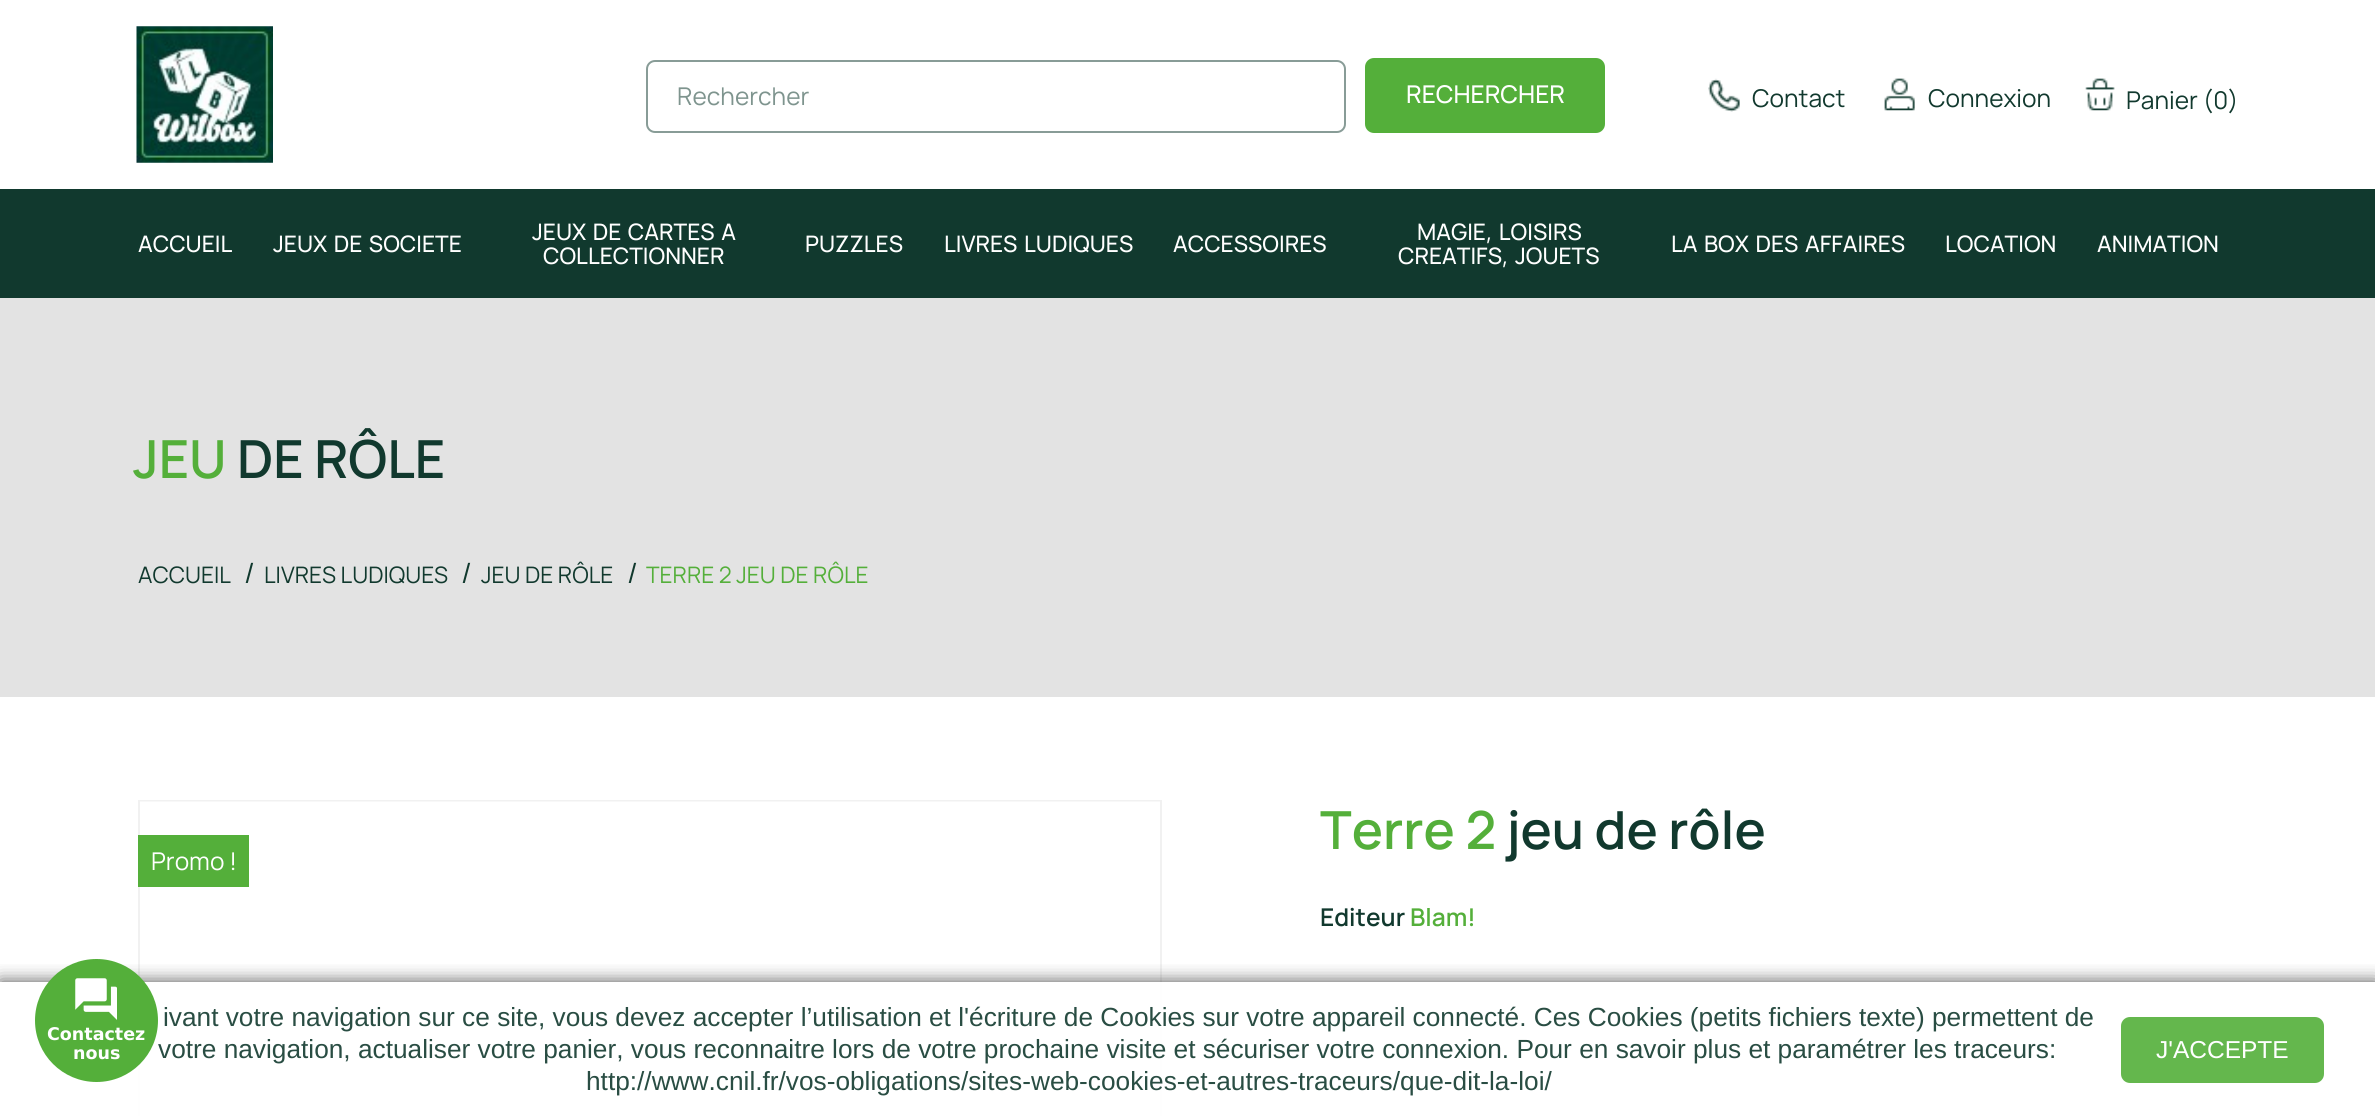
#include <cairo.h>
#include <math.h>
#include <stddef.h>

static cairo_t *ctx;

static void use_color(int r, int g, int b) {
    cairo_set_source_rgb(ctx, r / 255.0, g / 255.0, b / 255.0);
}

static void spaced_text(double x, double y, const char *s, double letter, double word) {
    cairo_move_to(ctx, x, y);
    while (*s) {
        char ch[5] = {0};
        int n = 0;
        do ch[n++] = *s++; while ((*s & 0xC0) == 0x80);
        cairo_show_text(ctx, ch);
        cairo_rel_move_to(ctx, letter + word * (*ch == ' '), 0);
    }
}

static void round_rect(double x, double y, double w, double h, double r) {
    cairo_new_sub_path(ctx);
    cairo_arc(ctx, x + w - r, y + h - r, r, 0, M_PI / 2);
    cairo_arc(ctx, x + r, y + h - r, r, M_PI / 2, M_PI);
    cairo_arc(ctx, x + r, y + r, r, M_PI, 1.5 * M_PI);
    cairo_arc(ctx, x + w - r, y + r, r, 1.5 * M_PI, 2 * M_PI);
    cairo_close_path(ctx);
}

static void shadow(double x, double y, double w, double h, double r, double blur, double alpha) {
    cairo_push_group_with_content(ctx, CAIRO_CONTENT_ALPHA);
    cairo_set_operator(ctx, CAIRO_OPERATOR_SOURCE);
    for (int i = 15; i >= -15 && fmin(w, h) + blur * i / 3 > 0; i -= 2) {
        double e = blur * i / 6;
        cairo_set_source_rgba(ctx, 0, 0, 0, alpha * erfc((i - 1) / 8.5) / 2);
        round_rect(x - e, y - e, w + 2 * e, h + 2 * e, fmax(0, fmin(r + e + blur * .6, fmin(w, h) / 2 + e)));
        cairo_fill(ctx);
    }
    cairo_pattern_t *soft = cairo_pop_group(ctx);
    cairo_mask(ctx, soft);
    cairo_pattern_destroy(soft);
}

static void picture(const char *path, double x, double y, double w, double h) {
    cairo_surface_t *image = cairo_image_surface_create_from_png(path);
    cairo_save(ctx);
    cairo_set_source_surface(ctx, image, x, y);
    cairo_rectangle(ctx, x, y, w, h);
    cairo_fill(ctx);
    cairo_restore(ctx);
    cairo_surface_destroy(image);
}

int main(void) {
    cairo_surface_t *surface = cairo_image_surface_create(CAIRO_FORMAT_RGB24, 2375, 1116);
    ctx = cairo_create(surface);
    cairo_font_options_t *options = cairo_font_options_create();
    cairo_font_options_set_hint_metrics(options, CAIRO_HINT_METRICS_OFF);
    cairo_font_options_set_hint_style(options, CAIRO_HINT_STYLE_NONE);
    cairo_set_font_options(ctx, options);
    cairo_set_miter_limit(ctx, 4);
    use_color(255, 255, 255);
    cairo_paint(ctx);
    picture("img1.png", 136, 26, 137, 137);
    round_rect(647, 61, 698, 71, 8);
    use_color(136, 156, 151);
    cairo_stroke(ctx);
    cairo_select_font_face(ctx, "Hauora", CAIRO_FONT_SLANT_NORMAL, CAIRO_FONT_WEIGHT_NORMAL);
    cairo_set_font_size(ctx, 24.5);
    use_color(126, 148, 142);
    cairo_move_to(ctx, 677, 105);
    cairo_show_text(ctx, "Rechercher");
    use_color(84, 175, 58);
    round_rect(1366, 59, 238, 73, 8);
    cairo_fill_preserve(ctx);
    cairo_stroke(ctx);
    cairo_select_font_face(ctx, "Hauora Medium", CAIRO_FONT_SLANT_NORMAL, CAIRO_FONT_WEIGHT_NORMAL);
    use_color(255, 255, 255);
    cairo_move_to(ctx, 1406, 103);
    cairo_show_text(ctx, "RECHERCHER");
    picture("img2.png", 1708, 78, 32, 34);
    cairo_select_font_face(ctx, "Hauora", CAIRO_FONT_SLANT_NORMAL, CAIRO_FONT_WEIGHT_NORMAL);
    use_color(17, 57, 46);
    cairo_move_to(ctx, 1752, 107);
    cairo_show_text(ctx, "Contact");
    picture("img3.png", 1884, 78, 31, 33);
    cairo_move_to(ctx, 1928, 107);
    cairo_show_text(ctx, "Connexion");
    picture("img4.png", 2085, 78, 30, 33);
    cairo_move_to(ctx, 2126, 109);
    cairo_show_text(ctx, "Panier (0)");
    cairo_rectangle(ctx, 0, 189, 2375, 109);
    cairo_fill(ctx);
    cairo_select_font_face(ctx, "Hauora Medium", CAIRO_FONT_SLANT_NORMAL, CAIRO_FONT_WEIGHT_NORMAL);
    cairo_set_font_size(ctx, 22.75);
    use_color(255, 255, 255);
    cairo_move_to(ctx, 138, 252);
    cairo_show_text(ctx, "ACCUEIL");
    spaced_text(273, 252, "JEUX DE SOCIETE", 0, 2);
    spaced_text(532, 240, "JEUX DE CARTES A", 0, 2);
    cairo_move_to(ctx, 543, 264);
    cairo_show_text(ctx, "COLLECTIONNER");
    cairo_move_to(ctx, 805, 252);
    cairo_show_text(ctx, "PUZZLES");
    spaced_text(944, 252, "LIVRES LUDIQUES", 0, 2);
    cairo_move_to(ctx, 1173, 252);
    cairo_show_text(ctx, "ACCESSOIRES");
    spaced_text(1417, 240, "MAGIE, LOISIRS", 0, 2);
    spaced_text(1398, 264, "CREATIFS, JOUETS", 0, 2);
    spaced_text(1671, 252, "LA BOX DES AFFAIRES", 0, 2);
    cairo_move_to(ctx, 1945, 252);
    cairo_show_text(ctx, "LOCATION");
    cairo_move_to(ctx, 2097, 252);
    cairo_show_text(ctx, "ANIMATION");
    use_color(227, 227, 227);
    cairo_rectangle(ctx, 0, 298, 2375, 399);
    cairo_fill(ctx);
    cairo_select_font_face(ctx, "Hauora SemiBold", CAIRO_FONT_SLANT_NORMAL, CAIRO_FONT_WEIGHT_NORMAL);
    cairo_set_font_size(ctx, 52.5);
    use_color(84, 175, 58);
    cairo_move_to(ctx, 133, 478);
    cairo_show_text(ctx, "JEU");
    use_color(17, 57, 46);
    cairo_move_to(ctx, 237, 478);
    cairo_show_text(ctx, "DE RÔLE");
    cairo_select_font_face(ctx, "Hauora", CAIRO_FONT_SLANT_NORMAL, CAIRO_FONT_WEIGHT_NORMAL);
    cairo_set_font_size(ctx, 22.75);
    cairo_move_to(ctx, 138, 583);
    cairo_show_text(ctx, "ACCUEIL");
    cairo_set_font_size(ctx, 28);
    cairo_move_to(ctx, 244, 583);
    cairo_show_text(ctx, "/");
    cairo_set_font_size(ctx, 22.75);
    cairo_move_to(ctx, 264, 583);
    cairo_show_text(ctx, "LIVRES LUDIQUES");
    cairo_set_font_size(ctx, 28);
    cairo_move_to(ctx, 461, 583);
    cairo_show_text(ctx, "/");
    cairo_set_font_size(ctx, 22.75);
    cairo_move_to(ctx, 481, 583);
    cairo_show_text(ctx, "JEU DE RÔLE");
    cairo_set_font_size(ctx, 28);
    cairo_move_to(ctx, 627, 583);
    cairo_show_text(ctx, "/");
    cairo_set_font_size(ctx, 22.75);
    use_color(84, 175, 58);
    cairo_move_to(ctx, 646, 583);
    cairo_show_text(ctx, "TERRE 2 JEU DE RÔLE");
    cairo_rectangle(ctx, 139, 801, 1022, 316);
    use_color(241, 241, 241);
    cairo_stroke(ctx);
    use_color(248, 248, 248);
    cairo_rectangle(ctx, 140, 801, 1020, 1);
    cairo_fill(ctx);
    use_color(84, 175, 58);
    cairo_rectangle(ctx, 138, 835, 111, 52);
    cairo_fill(ctx);
    cairo_set_font_size(ctx, 24.5);
    use_color(255, 255, 255);
    cairo_move_to(ctx, 151, 870);
    cairo_show_text(ctx, "Promo !");
    cairo_select_font_face(ctx, "Hauora SemiBold", CAIRO_FONT_SLANT_NORMAL, CAIRO_FONT_WEIGHT_NORMAL);
    cairo_set_font_size(ctx, 52.5);
    use_color(84, 175, 58);
    cairo_move_to(ctx, 1320, 849);
    cairo_show_text(ctx, "Terre 2");
    use_color(17, 57, 46);
    cairo_move_to(ctx, 1506, 849);
    cairo_show_text(ctx, "jeu de rôle");
    cairo_set_font_size(ctx, 24.5);
    cairo_move_to(ctx, 1320, 926);
    cairo_show_text(ctx, "Editeur");
    use_color(84, 175, 58);
    cairo_move_to(ctx, 1410, 926);
    cairo_show_text(ctx, "Blam!");
    cairo_save(ctx);
    cairo_rectangle(ctx, 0, 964, 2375, 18);
    cairo_clip(ctx);
    use_color(59, 59, 59);
    shadow(0, 982, 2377, 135, 0, 9, 0.9);
    cairo_restore(ctx);
    cairo_set_source_rgba(ctx, 1, 1, 1, 0.9);
    cairo_rectangle(ctx, 138, 982, 1024, 134);
    cairo_fill(ctx);
    use_color(84, 175, 58);
    cairo_arc(ctx, 96.5, 1020.5, 61.5, 0, 2 * M_PI);
    cairo_fill(ctx);
    picture("img5.png", 75, 978, 42, 42);
    cairo_select_font_face(ctx, "DejaVu Sans", CAIRO_FONT_SLANT_NORMAL, CAIRO_FONT_WEIGHT_BOLD);
    cairo_set_font_size(ctx, 17.5);
    use_color(255, 255, 255);
    cairo_move_to(ctx, 47, 1040);
    cairo_show_text(ctx, "Contactez");
    cairo_move_to(ctx, 73, 1059);
    cairo_show_text(ctx, "nous");
    cairo_select_font_face(ctx, "Liberation Sans", CAIRO_FONT_SLANT_NORMAL, CAIRO_FONT_WEIGHT_NORMAL);
    cairo_set_font_size(ctx, 26.25);
    use_color(41, 77, 67);
    cairo_move_to(ctx, 163, 1026);
    cairo_show_text(ctx, "ivant votre navigation sur ce site, vous devez accepter l’utilisation et l'écriture de Cookies sur votre appareil connecté. Ces Cookies (petits fichiers texte) permettent de");
    cairo_move_to(ctx, 158, 1058);
    cairo_show_text(ctx, "votre navigation, actualiser votre panier, vous reconnaitre lors de votre prochaine visite et sécuriser votre connexion. Pour en savoir plus et paramétrer les traceurs:");
    cairo_move_to(ctx, 586, 1090);
    cairo_show_text(ctx, "http://www.cnil.fr/vos-obligations/sites-web-cookies-et-autres-traceurs/que-dit-la-loi/");
    cairo_set_source_rgba(ctx, 0.329, 0.686, 0.227, 0.9);
    round_rect(2121, 1017, 203, 66, 9);
    cairo_fill(ctx);
    cairo_set_font_size(ctx, 24.5);
    use_color(255, 255, 255);
    cairo_move_to(ctx, 2156, 1058);
    cairo_show_text(ctx, "J'ACCEPTE");
    cairo_surface_write_to_png(surface, "result.png");
    cairo_font_options_destroy(options);
    cairo_destroy(ctx);
    cairo_surface_destroy(surface);
    return 0;
}
